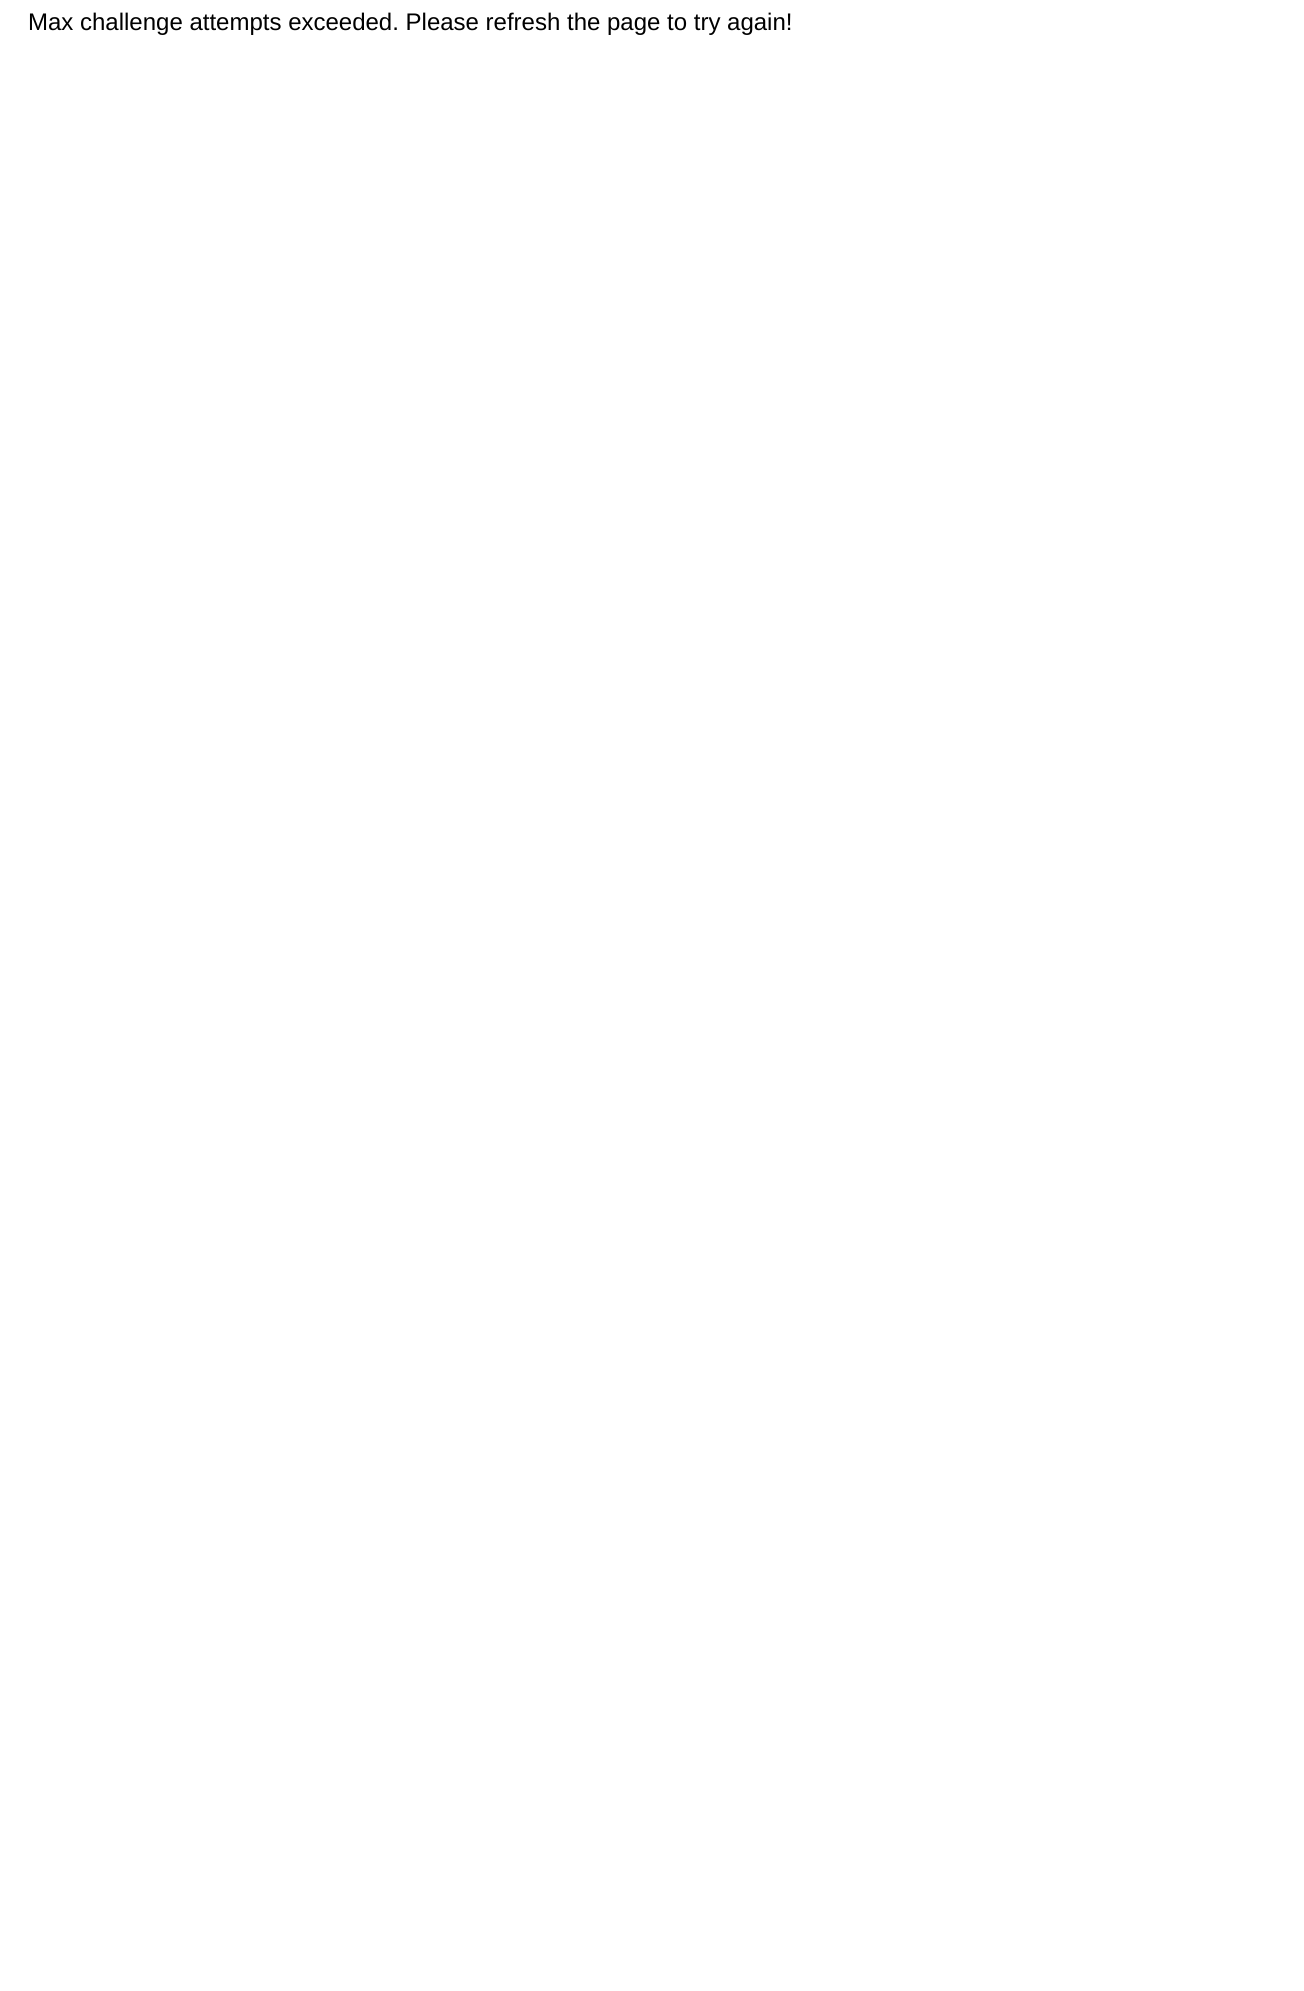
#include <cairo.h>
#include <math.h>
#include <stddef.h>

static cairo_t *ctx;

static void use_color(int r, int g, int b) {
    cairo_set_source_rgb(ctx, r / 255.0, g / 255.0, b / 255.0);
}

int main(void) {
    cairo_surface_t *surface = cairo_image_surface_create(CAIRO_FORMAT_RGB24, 1304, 1991);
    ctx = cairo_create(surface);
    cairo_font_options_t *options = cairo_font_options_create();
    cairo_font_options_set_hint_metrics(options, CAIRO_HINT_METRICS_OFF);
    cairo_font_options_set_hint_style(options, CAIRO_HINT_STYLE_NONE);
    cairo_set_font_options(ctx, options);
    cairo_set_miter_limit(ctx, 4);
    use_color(255, 255, 255);
    cairo_paint(ctx);
    cairo_select_font_face(ctx, "Liberation Sans", CAIRO_FONT_SLANT_NORMAL, CAIRO_FONT_WEIGHT_NORMAL);
    cairo_set_font_size(ctx, 24);
    use_color(0, 0, 0);
    cairo_move_to(ctx, 28, 30);
    cairo_show_text(ctx, "Max challenge attempts exceeded. Please refresh the page to try again!");
    cairo_surface_write_to_png(surface, "result.png");
    cairo_font_options_destroy(options);
    cairo_destroy(ctx);
    cairo_surface_destroy(surface);
    return 0;
}
